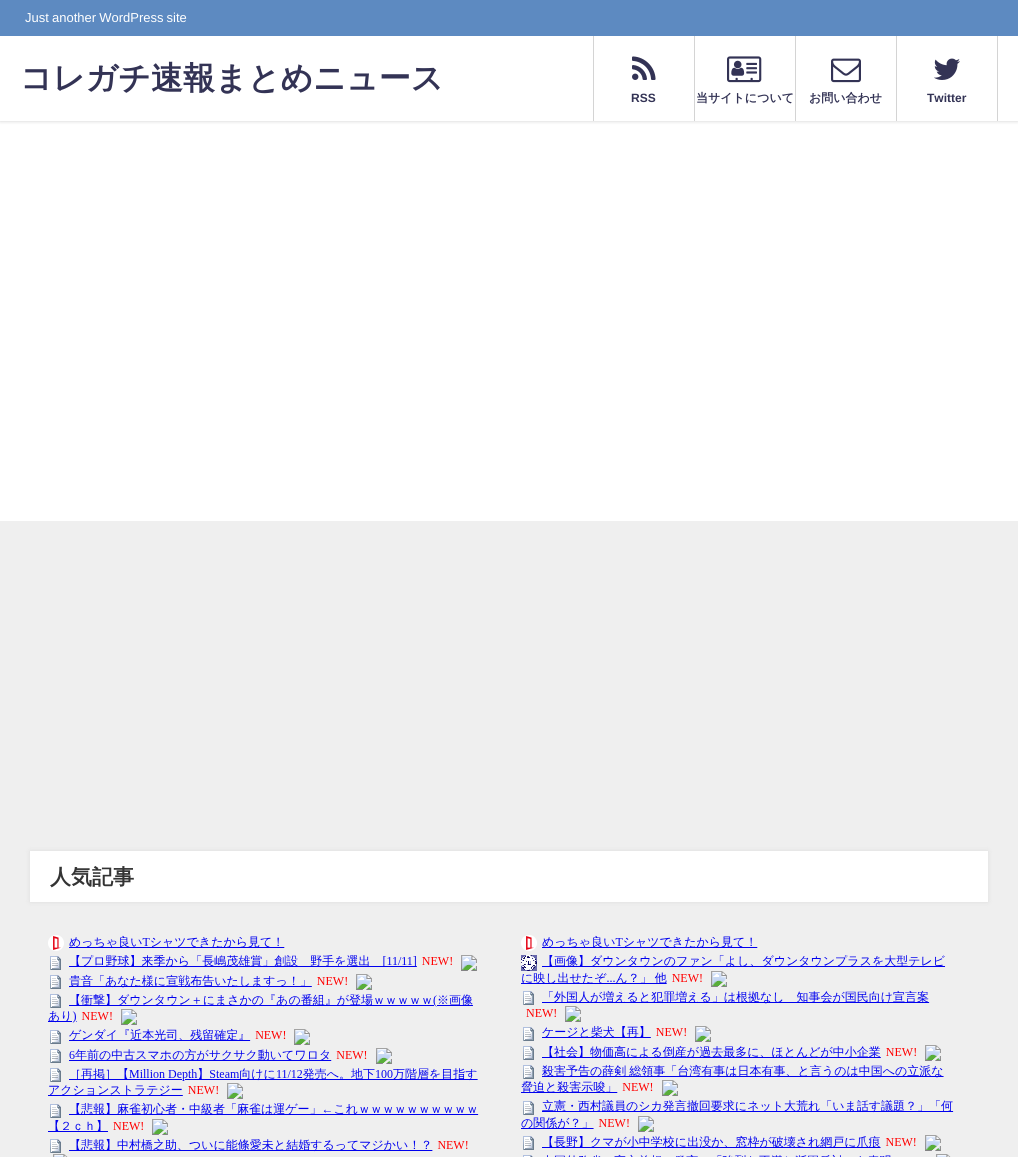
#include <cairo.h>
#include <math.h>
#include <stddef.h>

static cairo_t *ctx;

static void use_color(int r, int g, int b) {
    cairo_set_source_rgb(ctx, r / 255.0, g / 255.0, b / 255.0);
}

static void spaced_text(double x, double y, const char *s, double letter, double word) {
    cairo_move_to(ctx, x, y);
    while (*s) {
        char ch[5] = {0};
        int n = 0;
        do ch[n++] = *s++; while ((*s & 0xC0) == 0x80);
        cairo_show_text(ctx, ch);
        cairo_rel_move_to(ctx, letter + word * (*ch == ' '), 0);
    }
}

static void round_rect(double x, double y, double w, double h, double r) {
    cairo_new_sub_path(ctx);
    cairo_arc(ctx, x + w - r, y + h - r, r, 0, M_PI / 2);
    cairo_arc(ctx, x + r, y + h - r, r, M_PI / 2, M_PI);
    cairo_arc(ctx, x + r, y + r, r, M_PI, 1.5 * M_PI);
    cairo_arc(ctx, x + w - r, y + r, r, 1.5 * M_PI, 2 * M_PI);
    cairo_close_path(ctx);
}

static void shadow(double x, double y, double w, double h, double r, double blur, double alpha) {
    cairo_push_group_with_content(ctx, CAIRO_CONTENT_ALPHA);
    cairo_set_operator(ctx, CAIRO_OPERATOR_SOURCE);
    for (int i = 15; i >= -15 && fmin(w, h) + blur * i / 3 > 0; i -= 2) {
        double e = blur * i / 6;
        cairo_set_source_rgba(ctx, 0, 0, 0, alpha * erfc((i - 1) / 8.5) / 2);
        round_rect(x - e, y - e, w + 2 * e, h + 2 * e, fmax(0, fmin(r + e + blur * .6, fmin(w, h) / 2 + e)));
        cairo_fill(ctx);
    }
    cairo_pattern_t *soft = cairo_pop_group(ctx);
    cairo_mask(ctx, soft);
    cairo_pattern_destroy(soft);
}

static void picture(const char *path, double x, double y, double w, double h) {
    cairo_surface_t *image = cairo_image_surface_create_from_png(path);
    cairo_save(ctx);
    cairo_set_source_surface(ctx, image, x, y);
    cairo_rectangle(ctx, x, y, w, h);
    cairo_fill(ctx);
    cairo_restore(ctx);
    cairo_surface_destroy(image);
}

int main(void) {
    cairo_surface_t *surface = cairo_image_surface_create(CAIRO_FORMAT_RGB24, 1018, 1157);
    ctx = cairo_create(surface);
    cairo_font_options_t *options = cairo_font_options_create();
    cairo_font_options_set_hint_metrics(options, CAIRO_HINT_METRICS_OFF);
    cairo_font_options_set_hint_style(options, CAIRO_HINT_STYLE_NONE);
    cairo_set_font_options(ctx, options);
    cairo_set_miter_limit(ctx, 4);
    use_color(239, 239, 239);
    cairo_paint(ctx);
    use_color(255, 255, 255);
    cairo_rectangle(ctx, 0, 121, 1018, 400);
    cairo_fill(ctx);
    use_color(0, 0, 0);
    shadow(0, 0, 1018, 121, 0, 2, 0.2);
    use_color(255, 255, 255);
    cairo_rectangle(ctx, 0, 36, 1018, 85);
    cairo_fill(ctx);
    use_color(93, 138, 193);
    cairo_rectangle(ctx, 0, 0, 1018, 36);
    cairo_fill(ctx);
    cairo_select_font_face(ctx, "Liberation Sans", CAIRO_FONT_SLANT_NORMAL, CAIRO_FONT_WEIGHT_NORMAL);
    cairo_set_font_size(ctx, 13);
    use_color(255, 255, 255);
    spaced_text(25, 22, "Just another WordPress site", 0, -0.5);
    cairo_select_font_face(ctx, "WenQuanYi Zen Hei", CAIRO_FONT_SLANT_NORMAL, CAIRO_FONT_WEIGHT_BOLD);
    cairo_set_font_size(ctx, 32);
    use_color(51, 51, 85);
    cairo_move_to(ctx, 20, 89);
    cairo_show_text(ctx, "コレガチ速報まとめニュース");
    use_color(212, 212, 212);
    cairo_rectangle(ctx, 593, 36, 1, 85);
    cairo_fill(ctx);
    picture("img1.png", 632, 56, 24, 24);
    cairo_select_font_face(ctx, "Liberation Sans", CAIRO_FONT_SLANT_NORMAL, CAIRO_FONT_WEIGHT_BOLD);
    cairo_set_font_size(ctx, 12);
    use_color(51, 51, 85);
    cairo_move_to(ctx, 631, 102);
    cairo_show_text(ctx, "RSS");
    use_color(212, 212, 212);
    cairo_rectangle(ctx, 694, 36, 1, 85);
    cairo_fill(ctx);
    picture("img2.png", 727, 56, 35, 27);
    cairo_select_font_face(ctx, "WenQuanYi Zen Hei", CAIRO_FONT_SLANT_NORMAL, CAIRO_FONT_WEIGHT_BOLD);
    use_color(51, 51, 85);
    cairo_move_to(ctx, 696, 102);
    cairo_show_text(ctx, "当サイトについて");
    use_color(212, 212, 212);
    cairo_rectangle(ctx, 795, 36, 1, 85);
    cairo_fill(ctx);
    picture("img3.png", 831, 58, 30, 25);
    use_color(51, 51, 85);
    cairo_move_to(ctx, 809, 102);
    cairo_show_text(ctx, "お問い合わせ");
    use_color(212, 212, 212);
    cairo_rectangle(ctx, 997, 36, 1, 85);
    cairo_fill(ctx);
    cairo_rectangle(ctx, 896, 36, 1, 85);
    cairo_fill(ctx);
    picture("img4.png", 934, 58, 26, 22);
    cairo_select_font_face(ctx, "Liberation Sans", CAIRO_FONT_SLANT_NORMAL, CAIRO_FONT_WEIGHT_BOLD);
    use_color(51, 51, 85);
    cairo_move_to(ctx, 927, 102);
    cairo_show_text(ctx, "Twitter");
    use_color(150, 150, 150);
    shadow(30, 851, 958, 51, 0, 2.5, 0.2);
    use_color(255, 255, 255);
    cairo_rectangle(ctx, 30, 851, 958, 51);
    cairo_fill(ctx);
    cairo_select_font_face(ctx, "WenQuanYi Zen Hei", CAIRO_FONT_SLANT_NORMAL, CAIRO_FONT_WEIGHT_BOLD);
    cairo_set_font_size(ctx, 21);
    use_color(51, 51, 51);
    cairo_move_to(ctx, 50, 884);
    cairo_show_text(ctx, "人気記事");
    picture("img5.png", 48, 935, 431, 222);
    picture("img6.png", 521, 935, 433, 222);
    cairo_surface_write_to_png(surface, "result.png");
    cairo_font_options_destroy(options);
    cairo_destroy(ctx);
    cairo_surface_destroy(surface);
    return 0;
}
